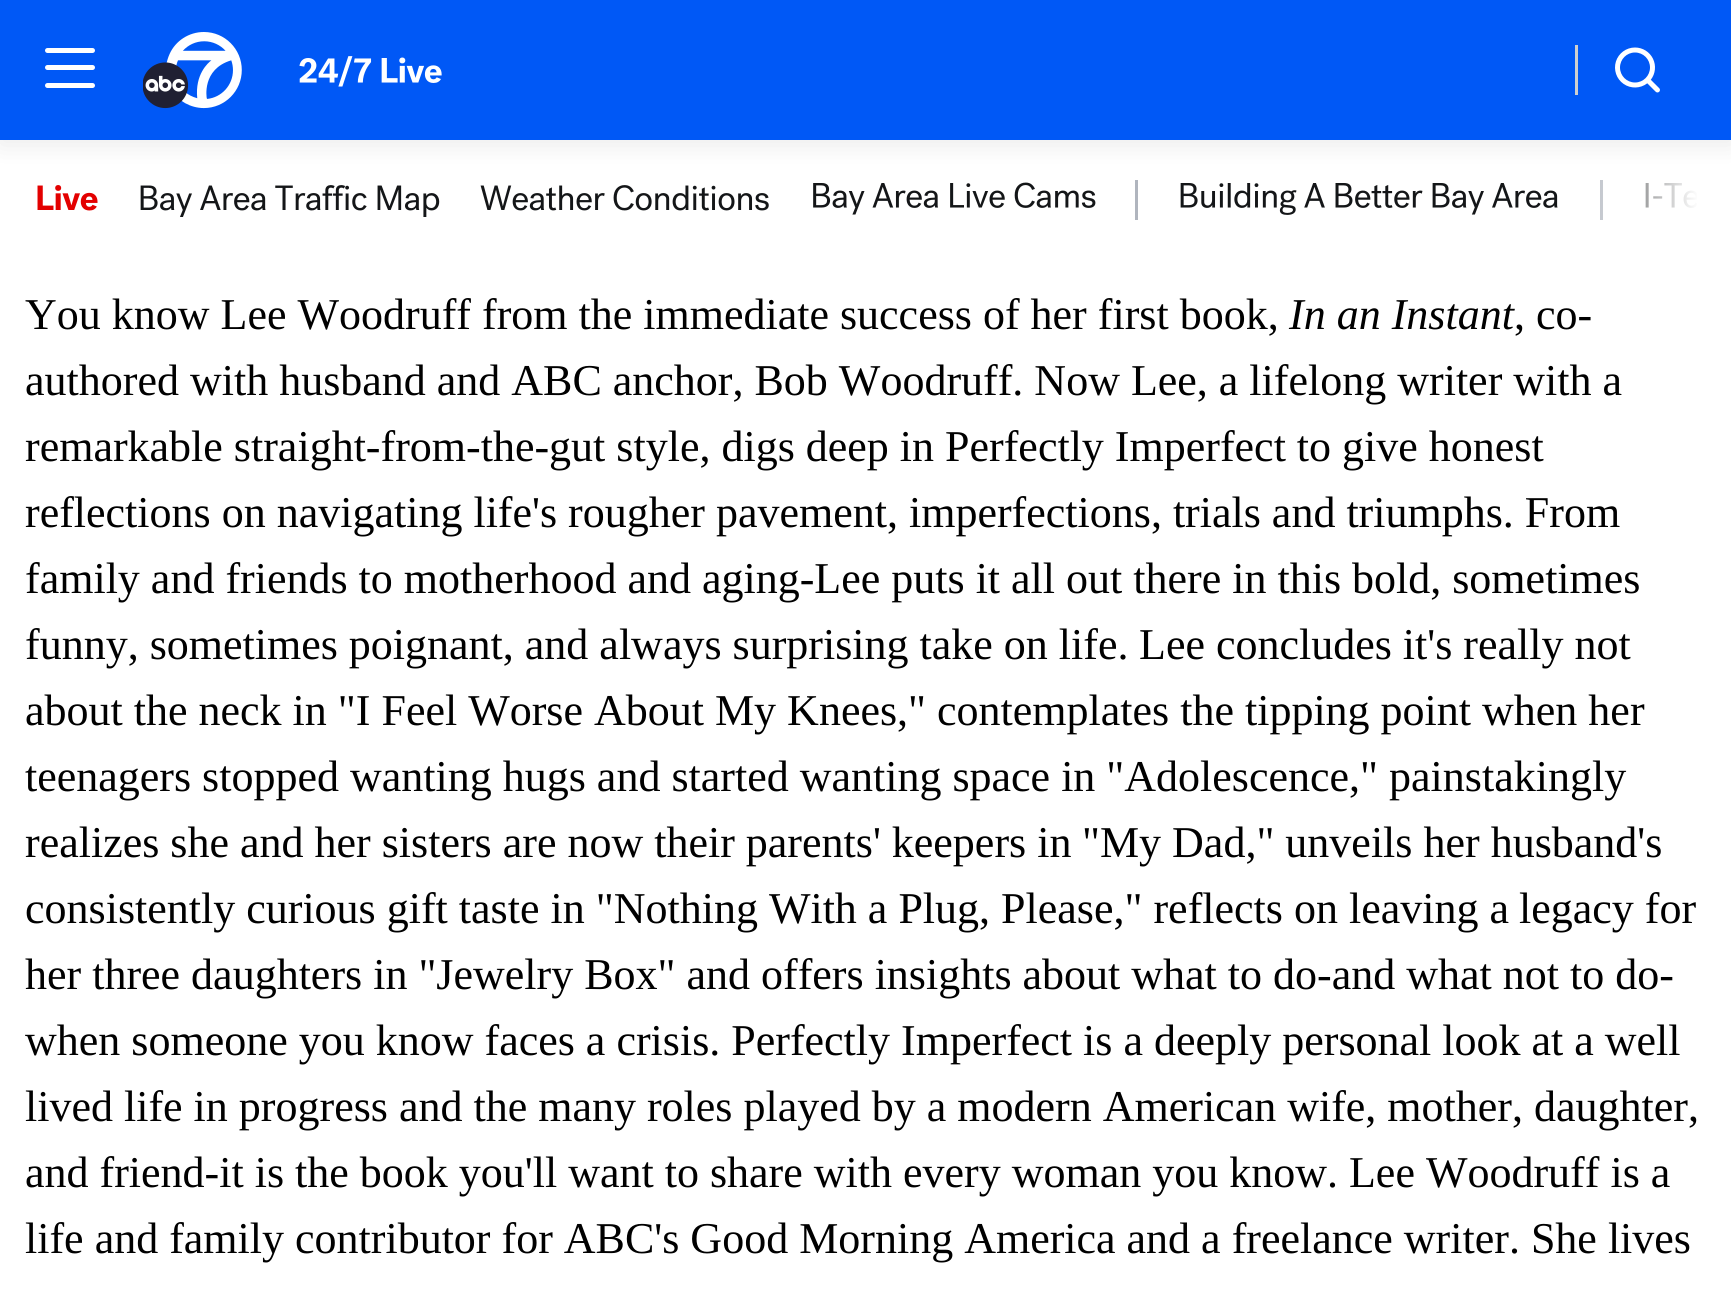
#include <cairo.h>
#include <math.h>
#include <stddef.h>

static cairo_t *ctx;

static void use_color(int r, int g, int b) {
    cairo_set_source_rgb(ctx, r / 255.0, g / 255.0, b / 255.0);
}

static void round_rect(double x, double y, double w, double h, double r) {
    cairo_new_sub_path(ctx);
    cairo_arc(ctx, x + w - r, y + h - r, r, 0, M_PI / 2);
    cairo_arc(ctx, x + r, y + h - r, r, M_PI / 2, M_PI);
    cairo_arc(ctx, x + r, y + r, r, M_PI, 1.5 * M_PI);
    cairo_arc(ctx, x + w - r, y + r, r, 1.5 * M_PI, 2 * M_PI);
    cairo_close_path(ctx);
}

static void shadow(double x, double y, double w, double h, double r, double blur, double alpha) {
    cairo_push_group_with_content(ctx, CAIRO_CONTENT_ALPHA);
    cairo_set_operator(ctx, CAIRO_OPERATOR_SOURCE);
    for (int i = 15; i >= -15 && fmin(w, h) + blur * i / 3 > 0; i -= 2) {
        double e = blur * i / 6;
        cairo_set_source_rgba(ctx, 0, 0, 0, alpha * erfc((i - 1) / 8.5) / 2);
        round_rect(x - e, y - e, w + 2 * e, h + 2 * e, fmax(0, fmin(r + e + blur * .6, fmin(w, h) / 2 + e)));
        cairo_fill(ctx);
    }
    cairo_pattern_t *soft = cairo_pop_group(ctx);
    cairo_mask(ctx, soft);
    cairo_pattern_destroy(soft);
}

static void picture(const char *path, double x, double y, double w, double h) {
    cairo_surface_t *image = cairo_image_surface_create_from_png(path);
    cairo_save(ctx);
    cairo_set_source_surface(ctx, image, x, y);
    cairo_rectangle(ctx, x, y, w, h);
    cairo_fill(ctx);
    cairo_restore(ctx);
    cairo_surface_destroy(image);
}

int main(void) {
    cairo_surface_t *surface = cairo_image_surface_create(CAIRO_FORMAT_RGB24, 1731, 1291);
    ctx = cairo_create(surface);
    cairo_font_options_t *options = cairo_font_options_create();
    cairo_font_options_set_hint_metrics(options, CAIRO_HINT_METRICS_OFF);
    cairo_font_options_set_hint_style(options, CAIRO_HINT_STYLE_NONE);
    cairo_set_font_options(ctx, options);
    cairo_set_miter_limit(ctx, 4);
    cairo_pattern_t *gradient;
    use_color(255, 255, 255);
    cairo_paint(ctx);
    picture("img7.png", 813, 182, 283, 33);
    use_color(176, 181, 190);
    cairo_rectangle(ctx, 1135, 180, 3, 40);
    cairo_fill(ctx);
    picture("img8.png", 1180, 183, 378, 32);
    cairo_rectangle(ctx, 1600, 180, 3, 40);
    cairo_fill(ctx);
    picture("img9.png", 1645, 183, 52, 25);
    gradient = cairo_pattern_create_linear(1698, 200, 1565, 200);
    cairo_pattern_add_color_stop_rgba(gradient, 0, 1, 1, 1, 1);
    cairo_pattern_add_color_stop_rgba(gradient, 1, 1, 1, 1, 0);
    cairo_set_source(ctx, gradient);
    cairo_pattern_destroy(gradient);
    cairo_rectangle(ctx, 1600, 180, 97, 40);
    cairo_fill(ctx);
    use_color(0, 0, 0);
    shadow(0, 5, 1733, 140, 0, 12.5, 0.08);
    use_color(0, 88, 246);
    cairo_rectangle(ctx, 0, 0, 1731, 140);
    cairo_fill(ctx);
    use_color(255, 255, 255);
    round_rect(45, 65, 50, 5, 2.5);
    cairo_fill(ctx);
    round_rect(45, 48, 50, 5, 2.5);
    cairo_fill(ctx);
    round_rect(45, 83, 50, 5, 2.5);
    cairo_fill(ctx);
    picture("img1.png", 143, 32, 99, 77);
    picture("img2.png", 299, 56, 143, 31);
    use_color(206, 207, 207);
    cairo_rectangle(ctx, 1575, 45, 3, 50);
    cairo_fill(ctx);
    picture("img3.png", 1615, 47, 45, 46);
    picture("img4.png", 37, 185, 61, 26);
    picture("img5.png", 140, 185, 300, 32);
    picture("img6.png", 480, 185, 289, 26);
    cairo_select_font_face(ctx, "Liberation Serif", CAIRO_FONT_SLANT_NORMAL, CAIRO_FONT_WEIGHT_NORMAL);
    cairo_set_font_size(ctx, 44);
    use_color(0, 0, 0);
    cairo_move_to(ctx, 25, 329);
    cairo_show_text(ctx, "You know Lee Woodruff from the immediate success of her first book,");
    cairo_select_font_face(ctx, "Liberation Serif", CAIRO_FONT_SLANT_ITALIC, CAIRO_FONT_WEIGHT_NORMAL);
    cairo_move_to(ctx, 1289, 329);
    cairo_show_text(ctx, "In an Instant");
    cairo_select_font_face(ctx, "Liberation Serif", CAIRO_FONT_SLANT_NORMAL, CAIRO_FONT_WEIGHT_NORMAL);
    cairo_move_to(ctx, 1514, 329);
    cairo_show_text(ctx, ", co-");
    cairo_move_to(ctx, 25, 395);
    cairo_show_text(ctx, "authored with husband and ABC anchor, Bob Woodruff. Now Lee, a lifelong writer with a");
    cairo_move_to(ctx, 25, 461);
    cairo_show_text(ctx, "remarkable straight-from-the-gut style, digs deep in Perfectly Imperfect to give honest");
    cairo_move_to(ctx, 25, 527);
    cairo_show_text(ctx, "reflections on navigating life's rougher pavement, imperfections, trials and triumphs. From");
    cairo_move_to(ctx, 25, 593);
    cairo_show_text(ctx, "family and friends to motherhood and aging-Lee puts it all out there in this bold, sometimes");
    cairo_move_to(ctx, 25, 659);
    cairo_show_text(ctx, "funny, sometimes poignant, and always surprising take on life.");
    cairo_move_to(ctx, 1139, 659);
    cairo_show_text(ctx, "Lee concludes it's really not");
    cairo_move_to(ctx, 25, 725);
    cairo_show_text(ctx, "about the neck in \"I Feel Worse About My Knees,\" contemplates the tipping point when her");
    cairo_move_to(ctx, 25, 791);
    cairo_show_text(ctx, "teenagers stopped wanting hugs and started wanting space in \"Adolescence,\" painstakingly");
    cairo_move_to(ctx, 25, 857);
    cairo_show_text(ctx, "realizes she and her sisters are now their parents' keepers in");
    cairo_move_to(ctx, 1082, 857);
    cairo_show_text(ctx, "\"My Dad,\" unveils her husband's");
    cairo_move_to(ctx, 25, 923);
    cairo_show_text(ctx, "consistently curious gift taste in \"Nothing With a Plug, Please,\" reflects on leaving a");
    cairo_move_to(ctx, 1519, 923);
    cairo_show_text(ctx, "legacy for");
    cairo_move_to(ctx, 25, 989);
    cairo_show_text(ctx, "her three daughters in \"Jewelry Box\" and offers insights about what to do-and what not to do-");
    cairo_move_to(ctx, 25, 1055);
    cairo_show_text(ctx, "when someone you know faces a crisis. Perfectly Imperfect is a deeply personal look at a well");
    cairo_move_to(ctx, 25, 1121);
    cairo_show_text(ctx, "lived life in progress and the many roles played by a modern American wife, mother, daughter,");
    cairo_move_to(ctx, 25, 1187);
    cairo_show_text(ctx, "and friend-it is the book you'll want to share with every woman you know. Lee Woodruff is a");
    cairo_move_to(ctx, 25, 1253);
    cairo_show_text(ctx, "life and family contributor for ABC's Good Morning America and a freelance writer. She lives");
    cairo_surface_write_to_png(surface, "result.png");
    cairo_font_options_destroy(options);
    cairo_destroy(ctx);
    cairo_surface_destroy(surface);
    return 0;
}
